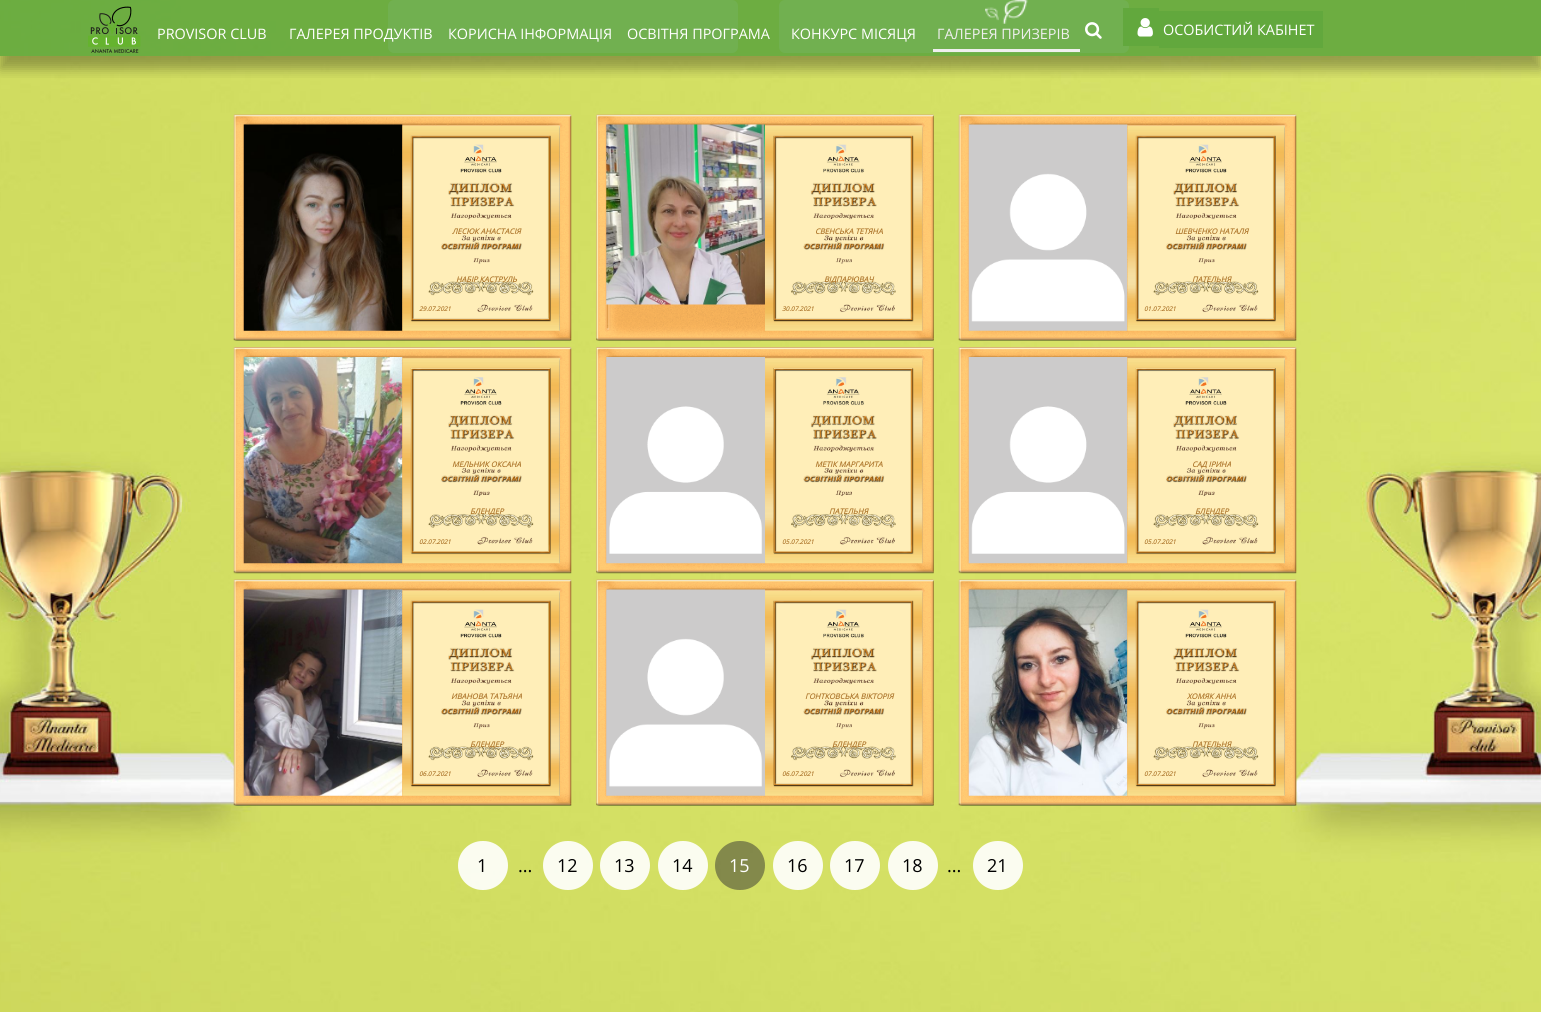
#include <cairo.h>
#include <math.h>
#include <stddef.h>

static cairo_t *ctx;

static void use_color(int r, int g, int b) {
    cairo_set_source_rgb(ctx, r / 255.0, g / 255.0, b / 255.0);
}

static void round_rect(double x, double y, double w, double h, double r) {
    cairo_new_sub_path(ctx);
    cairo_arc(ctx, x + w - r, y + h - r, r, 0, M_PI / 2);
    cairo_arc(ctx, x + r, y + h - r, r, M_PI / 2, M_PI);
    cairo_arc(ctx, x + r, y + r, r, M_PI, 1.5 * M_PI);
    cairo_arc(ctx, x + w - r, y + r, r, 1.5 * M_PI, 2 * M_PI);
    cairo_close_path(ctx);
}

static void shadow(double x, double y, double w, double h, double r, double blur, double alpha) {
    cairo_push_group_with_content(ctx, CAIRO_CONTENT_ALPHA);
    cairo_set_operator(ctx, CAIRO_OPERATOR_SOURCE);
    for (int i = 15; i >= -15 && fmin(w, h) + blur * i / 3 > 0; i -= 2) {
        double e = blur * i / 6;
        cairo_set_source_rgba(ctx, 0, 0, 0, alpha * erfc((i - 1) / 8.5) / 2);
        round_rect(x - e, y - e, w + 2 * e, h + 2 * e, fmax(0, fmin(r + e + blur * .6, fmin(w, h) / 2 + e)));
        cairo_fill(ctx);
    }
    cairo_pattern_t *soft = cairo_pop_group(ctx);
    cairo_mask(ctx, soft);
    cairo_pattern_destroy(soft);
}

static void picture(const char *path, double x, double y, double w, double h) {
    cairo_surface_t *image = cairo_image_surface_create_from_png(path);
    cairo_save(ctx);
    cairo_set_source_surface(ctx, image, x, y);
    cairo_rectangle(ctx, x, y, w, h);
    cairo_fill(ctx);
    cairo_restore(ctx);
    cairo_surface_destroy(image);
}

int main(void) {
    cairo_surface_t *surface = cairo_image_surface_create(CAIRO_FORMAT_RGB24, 1541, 1012);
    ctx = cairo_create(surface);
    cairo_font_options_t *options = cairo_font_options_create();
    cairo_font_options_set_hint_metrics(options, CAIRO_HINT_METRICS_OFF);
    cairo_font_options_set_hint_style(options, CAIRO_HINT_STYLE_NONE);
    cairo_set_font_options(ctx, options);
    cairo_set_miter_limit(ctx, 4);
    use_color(255, 255, 255);
    cairo_paint(ctx);
    picture("img1.png", 0, 0, 1541, 1012);
    use_color(255, 255, 255);
    round_rect(388, 0, 350, 53, 6);
    cairo_fill(ctx);
    round_rect(779, 0, 350, 53, 6);
    cairo_fill(ctx);
    cairo_save(ctx);
    cairo_rectangle(ctx, 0, 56, 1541, 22);
    cairo_clip(ctx);
    use_color(0, 0, 0);
    shadow(0, 13, 1541, 56, 0, 6, 0.3);
    cairo_restore(ctx);
    cairo_set_source_rgba(ctx, 0.384, 0.659, 0.239, 0.9);
    cairo_rectangle(ctx, 0, 0, 1541, 56);
    cairo_fill(ctx);
    picture("img2.png", 88, 6, 53, 47);
    cairo_select_font_face(ctx, "Open Sans", CAIRO_FONT_SLANT_NORMAL, CAIRO_FONT_WEIGHT_NORMAL);
    cairo_set_font_size(ctx, 14.4);
    use_color(255, 255, 255);
    cairo_move_to(ctx, 157, 39);
    cairo_show_text(ctx, "PROVISOR CLUB");
    cairo_move_to(ctx, 289, 39);
    cairo_show_text(ctx, "ГАЛЕРЕЯ ПРОДУКТІВ");
    cairo_move_to(ctx, 448, 39);
    cairo_show_text(ctx, "КОРИСНА ІНФОРМАЦІЯ");
    cairo_move_to(ctx, 627, 39);
    cairo_show_text(ctx, "ОСВІТНЯ ПРОГРАМА");
    cairo_move_to(ctx, 791, 39);
    cairo_show_text(ctx, "КОНКУРС МІСЯЦЯ");
    picture("img3.png", 985, 0, 43, 24);
    use_color(239, 239, 239);
    cairo_rectangle(ctx, 933, 49, 147, 3);
    cairo_fill(ctx);
    cairo_move_to(ctx, 937, 39);
    cairo_show_text(ctx, "ГАЛЕРЕЯ ПРИЗЕРІВ");
    picture("img4.png", 1085, 22, 17, 17);
    use_color(98, 168, 61);
    cairo_rectangle(ctx, 1123, 8, 36, 38);
    cairo_fill(ctx);
    cairo_rectangle(ctx, 1159, 11, 164, 37);
    cairo_fill(ctx);
    picture("img5.png", 1137, 18, 16, 19);
    use_color(255, 255, 255);
    cairo_move_to(ctx, 1163, 35);
    cairo_show_text(ctx, "ОСОБИСТИЙ КАБІНЕТ");
    picture("img6.png", 233, 114, 339, 227);
    picture("img7.png", 243, 124, 160, 207);
    picture("img8.png", 402, 125, 158, 206);
    cairo_select_font_face(ctx, "Open Sans", CAIRO_FONT_SLANT_ITALIC, CAIRO_FONT_WEIGHT_BOLD);
    cairo_set_font_size(ctx, 7.5);
    use_color(174, 119, 45);
    cairo_move_to(ctx, 452, 234);
    cairo_show_text(ctx, "ЛЕСЮК АНАСТАСІЯ");
    cairo_move_to(ctx, 456, 282);
    cairo_show_text(ctx, "НАБІР КАСТРУЛЬ");
    cairo_set_font_size(ctx, 6.25);
    cairo_move_to(ctx, 419, 311);
    cairo_show_text(ctx, "29.07.2021");
    picture("img9.png", 596, 114, 338, 227);
    picture("img10.png", 606, 124, 159, 181);
    picture("img11.png", 765, 125, 158, 206);
    cairo_set_font_size(ctx, 7.5);
    cairo_move_to(ctx, 815, 234);
    cairo_show_text(ctx, "СВЕНСЬКА ТЕТЯНА");
    cairo_move_to(ctx, 824, 282);
    cairo_show_text(ctx, "ВІДПАРЮВАЧ");
    cairo_set_font_size(ctx, 6.25);
    cairo_move_to(ctx, 782, 311);
    cairo_show_text(ctx, "30.07.2021");
    picture("img12.png", 958, 114, 339, 227);
    picture("img13.png", 968, 124, 160, 207);
    picture("img14.png", 1127, 125, 158, 206);
    cairo_set_font_size(ctx, 7.5);
    cairo_move_to(ctx, 1175, 234);
    cairo_show_text(ctx, "ШЕВЧЕНКО НАТАЛЯ");
    cairo_move_to(ctx, 1192, 282);
    cairo_show_text(ctx, "ПАТЕЛЬНЯ");
    cairo_set_font_size(ctx, 6.25);
    cairo_move_to(ctx, 1144, 311);
    cairo_show_text(ctx, "01.07.2021");
    picture("img15.png", 233, 347, 339, 227);
    picture("img16.png", 243, 357, 160, 207);
    picture("img17.png", 402, 358, 158, 206);
    cairo_set_font_size(ctx, 7.5);
    cairo_move_to(ctx, 452, 467);
    cairo_show_text(ctx, "МЕЛЬНИК ОКСАНА");
    cairo_move_to(ctx, 470, 514);
    cairo_show_text(ctx, "БЛЕНДЕР");
    cairo_set_font_size(ctx, 6.25);
    cairo_move_to(ctx, 419, 544);
    cairo_show_text(ctx, "02.07.2021");
    picture("img18.png", 596, 347, 338, 227);
    picture("img19.png", 606, 357, 159, 207);
    picture("img20.png", 765, 358, 158, 206);
    cairo_set_font_size(ctx, 7.5);
    cairo_move_to(ctx, 815, 467);
    cairo_show_text(ctx, "МЕТІК МАРГАРИТА");
    cairo_move_to(ctx, 829, 514);
    cairo_show_text(ctx, "ПАТЕЛЬНЯ");
    cairo_set_font_size(ctx, 6.25);
    cairo_move_to(ctx, 782, 544);
    cairo_show_text(ctx, "05.07.2021");
    picture("img21.png", 958, 347, 339, 227);
    picture("img22.png", 968, 357, 160, 207);
    picture("img23.png", 1127, 358, 158, 206);
    cairo_set_font_size(ctx, 7.5);
    cairo_move_to(ctx, 1192, 467);
    cairo_show_text(ctx, "САД ІРИНА");
    cairo_move_to(ctx, 1195, 514);
    cairo_show_text(ctx, "БЛЕНДЕР");
    cairo_set_font_size(ctx, 6.25);
    cairo_move_to(ctx, 1144, 544);
    cairo_show_text(ctx, "05.07.2021");
    picture("img24.png", 233, 579, 339, 227);
    picture("img25.png", 243, 589, 160, 207);
    picture("img26.png", 402, 590, 158, 206);
    cairo_set_font_size(ctx, 7.5);
    cairo_move_to(ctx, 451, 699);
    cairo_show_text(ctx, "ИВАНОВА ТАТЬЯНА");
    cairo_move_to(ctx, 470, 747);
    cairo_show_text(ctx, "БЛЕНДЕР");
    cairo_set_font_size(ctx, 6.25);
    cairo_move_to(ctx, 419, 776);
    cairo_show_text(ctx, "06.07.2021");
    picture("img27.png", 596, 579, 338, 227);
    picture("img28.png", 606, 589, 159, 207);
    picture("img11.png", 765, 590, 158, 206);
    cairo_set_font_size(ctx, 7.5);
    cairo_move_to(ctx, 805, 699);
    cairo_show_text(ctx, "ГОНТКОВСЬКА ВІКТОРІЯ");
    cairo_move_to(ctx, 832, 747);
    cairo_show_text(ctx, "БЛЕНДЕР");
    cairo_set_font_size(ctx, 6.25);
    cairo_move_to(ctx, 782, 776);
    cairo_show_text(ctx, "06.07.2021");
    picture("img29.png", 958, 579, 339, 227);
    picture("img30.png", 968, 589, 160, 207);
    picture("img31.png", 1127, 590, 158, 206);
    cairo_set_font_size(ctx, 7.5);
    cairo_move_to(ctx, 1187, 699);
    cairo_show_text(ctx, "ХОМЯК АННА");
    cairo_move_to(ctx, 1192, 747);
    cairo_show_text(ctx, "ПАТЕЛЬНЯ");
    cairo_set_font_size(ctx, 6.25);
    cairo_move_to(ctx, 1144, 776);
    cairo_show_text(ctx, "07.07.2021");
    cairo_set_source_rgba(ctx, 1, 1, 1, 0.9);
    round_rect(458, 841, 50, 49, 24.5);
    cairo_fill(ctx);
    cairo_select_font_face(ctx, "Open Sans", CAIRO_FONT_SLANT_NORMAL, CAIRO_FONT_WEIGHT_NORMAL);
    cairo_set_font_size(ctx, 18);
    use_color(0, 0, 0);
    cairo_move_to(ctx, 477, 872);
    cairo_show_text(ctx, "1");
    cairo_move_to(ctx, 518, 872);
    cairo_show_text(ctx, "...");
    cairo_set_source_rgba(ctx, 1, 1, 1, 0.9);
    round_rect(543, 841, 50, 49, 24.5);
    cairo_fill(ctx);
    use_color(0, 0, 0);
    cairo_move_to(ctx, 557, 872);
    cairo_show_text(ctx, "12");
    use_color(251, 252, 239);
    round_rect(600, 841, 50, 49, 24.5);
    cairo_fill(ctx);
    use_color(0, 0, 0);
    cairo_move_to(ctx, 614, 872);
    cairo_show_text(ctx, "13");
    cairo_set_source_rgba(ctx, 1, 1, 1, 0.9);
    round_rect(658, 841, 50, 49, 24.5);
    cairo_fill(ctx);
    use_color(0, 0, 0);
    cairo_move_to(ctx, 672, 872);
    cairo_show_text(ctx, "14");
    cairo_set_source_rgba(ctx, 0.196, 0.196, 0.196, 0.5);
    round_rect(715, 841, 50, 49, 24.5);
    cairo_fill(ctx);
    use_color(255, 255, 255);
    cairo_move_to(ctx, 729, 872);
    cairo_show_text(ctx, "15");
    cairo_set_source_rgba(ctx, 1, 1, 1, 0.9);
    round_rect(773, 841, 50, 49, 24.5);
    cairo_fill(ctx);
    use_color(0, 0, 0);
    cairo_move_to(ctx, 787, 872);
    cairo_show_text(ctx, "16");
    cairo_set_source_rgba(ctx, 1, 1, 1, 0.9);
    round_rect(830, 841, 50, 49, 24.5);
    cairo_fill(ctx);
    use_color(0, 0, 0);
    cairo_move_to(ctx, 844, 872);
    cairo_show_text(ctx, "17");
    cairo_set_source_rgba(ctx, 1, 1, 1, 0.9);
    round_rect(888, 841, 50, 49, 24.5);
    cairo_fill(ctx);
    use_color(0, 0, 0);
    cairo_move_to(ctx, 902, 872);
    cairo_show_text(ctx, "18");
    cairo_set_source_rgba(ctx, 1, 1, 1, 0.9);
    round_rect(973, 841, 50, 49, 24.5);
    cairo_fill(ctx);
    use_color(0, 0, 0);
    cairo_move_to(ctx, 947, 872);
    cairo_show_text(ctx, "...");
    cairo_move_to(ctx, 987, 872);
    cairo_show_text(ctx, "21");
    cairo_surface_write_to_png(surface, "result.png");
    cairo_font_options_destroy(options);
    cairo_destroy(ctx);
    cairo_surface_destroy(surface);
    return 0;
}
